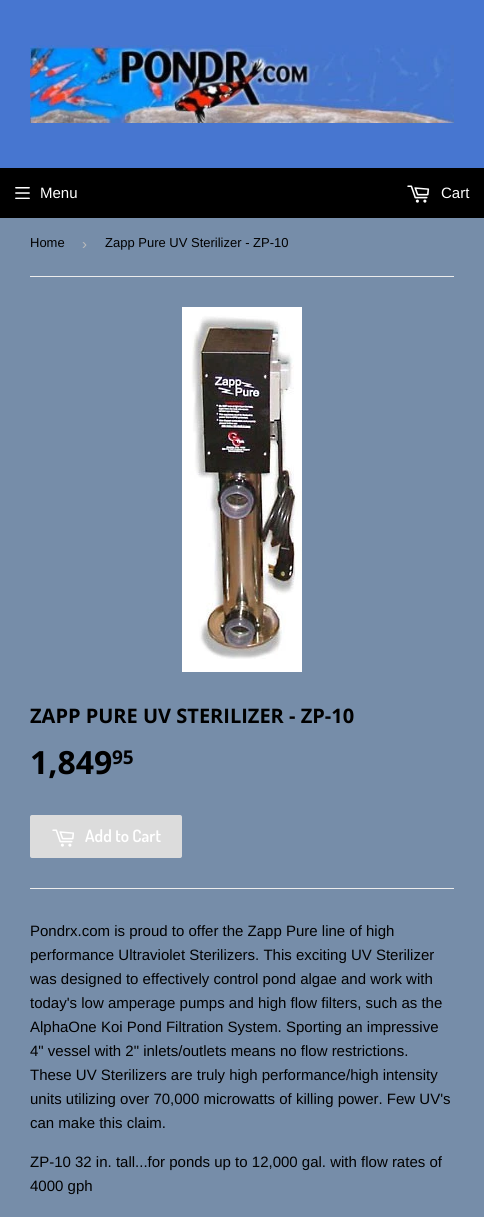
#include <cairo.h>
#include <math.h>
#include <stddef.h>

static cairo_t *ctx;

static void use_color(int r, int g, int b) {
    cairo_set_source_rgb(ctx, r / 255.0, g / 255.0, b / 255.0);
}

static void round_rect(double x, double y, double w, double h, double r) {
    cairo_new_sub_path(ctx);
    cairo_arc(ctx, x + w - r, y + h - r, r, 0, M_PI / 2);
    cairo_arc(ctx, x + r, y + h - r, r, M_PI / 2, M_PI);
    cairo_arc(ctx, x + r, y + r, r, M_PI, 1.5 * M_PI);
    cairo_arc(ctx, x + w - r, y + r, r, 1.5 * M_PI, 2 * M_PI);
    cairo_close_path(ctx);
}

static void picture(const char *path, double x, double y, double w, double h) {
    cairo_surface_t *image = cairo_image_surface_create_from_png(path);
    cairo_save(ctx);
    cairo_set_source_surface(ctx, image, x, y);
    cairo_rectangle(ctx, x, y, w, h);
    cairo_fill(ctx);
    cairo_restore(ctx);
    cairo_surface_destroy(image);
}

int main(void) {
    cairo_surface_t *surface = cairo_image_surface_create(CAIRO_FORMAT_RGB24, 484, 1217);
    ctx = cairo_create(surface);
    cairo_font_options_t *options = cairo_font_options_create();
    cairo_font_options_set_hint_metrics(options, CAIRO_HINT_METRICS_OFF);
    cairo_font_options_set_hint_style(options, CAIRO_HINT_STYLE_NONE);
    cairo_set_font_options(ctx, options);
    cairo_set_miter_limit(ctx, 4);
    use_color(118, 141, 169);
    cairo_paint(ctx);
    use_color(71, 118, 208);
    cairo_rectangle(ctx, 0, 0, 484, 168);
    cairo_fill(ctx);
    picture("img1.png", 30, 45, 424, 78);
    use_color(0, 0, 0);
    cairo_rectangle(ctx, 0, 168, 484, 50);
    cairo_fill(ctx);
    picture("img2.png", 15, 187, 15, 12);
    cairo_select_font_face(ctx, "Liberation Sans", CAIRO_FONT_SLANT_NORMAL, CAIRO_FONT_WEIGHT_NORMAL);
    cairo_set_font_size(ctx, 15);
    use_color(255, 255, 255);
    cairo_move_to(ctx, 40, 198);
    cairo_show_text(ctx, "Menu");
    picture("img3.png", 407, 185, 23, 18);
    cairo_move_to(ctx, 441, 198);
    cairo_show_text(ctx, "Cart");
    use_color(236, 236, 236);
    cairo_rectangle(ctx, 30, 276, 424, 1);
    cairo_fill(ctx);
    cairo_set_font_size(ctx, 13);
    use_color(0, 0, 0);
    cairo_move_to(ctx, 30, 247);
    cairo_show_text(ctx, "Home");
    cairo_set_font_size(ctx, 15);
    use_color(187, 187, 187);
    cairo_move_to(ctx, 82, 249);
    cairo_show_text(ctx, "›");
    cairo_set_font_size(ctx, 13);
    use_color(0, 0, 0);
    cairo_move_to(ctx, 105, 247);
    cairo_show_text(ctx, "Zapp Pure UV Sterilizer - ZP-10");
    picture("img4.png", 182, 307, 120, 365);
    cairo_select_font_face(ctx, "Open Sans", CAIRO_FONT_SLANT_NORMAL, CAIRO_FONT_WEIGHT_BOLD);
    cairo_set_font_size(ctx, 20);
    cairo_move_to(ctx, 30, 723);
    cairo_show_text(ctx, "ZAPP PURE UV STERILIZER - ZP-10");
    cairo_set_font_size(ctx, 32);
    cairo_move_to(ctx, 30, 774);
    cairo_show_text(ctx, "1,849");
    cairo_set_font_size(ctx, 19);
    cairo_move_to(ctx, 112, 764);
    cairo_show_text(ctx, "95");
    use_color(220, 220, 220);
    round_rect(30, 815, 152, 43, 2);
    cairo_fill(ctx);
    picture("img5.png", 52, 829, 22, 18);
    cairo_select_font_face(ctx, "Dosis SemiBold", CAIRO_FONT_SLANT_NORMAL, CAIRO_FONT_WEIGHT_NORMAL);
    cairo_set_font_size(ctx, 17);
    use_color(255, 255, 255);
    cairo_move_to(ctx, 85, 842);
    cairo_show_text(ctx, "Add to Cart");
    use_color(236, 236, 236);
    cairo_rectangle(ctx, 30, 888, 424, 1);
    cairo_fill(ctx);
    cairo_select_font_face(ctx, "Liberation Sans", CAIRO_FONT_SLANT_NORMAL, CAIRO_FONT_WEIGHT_NORMAL);
    cairo_set_font_size(ctx, 15);
    use_color(0, 0, 0);
    cairo_move_to(ctx, 30, 936);
    cairo_show_text(ctx, "Pondrx.com is proud to offer the Zapp Pure line of high");
    cairo_move_to(ctx, 30, 960);
    cairo_show_text(ctx, "performance Ultraviolet Sterilizers. This exciting UV Sterilizer");
    cairo_move_to(ctx, 30, 984);
    cairo_show_text(ctx, "was designed to effectively control pond algae and work with");
    cairo_move_to(ctx, 30, 1008);
    cairo_show_text(ctx, "today's low amperage pumps and high flow filters, such as the");
    cairo_move_to(ctx, 30, 1032);
    cairo_show_text(ctx, "AlphaOne Koi Pond Filtration System. Sporting an impressive");
    cairo_move_to(ctx, 30, 1056);
    cairo_show_text(ctx, "4\" vessel with 2\" inlets/outlets means no flow restrictions.");
    cairo_move_to(ctx, 30, 1080);
    cairo_show_text(ctx, "These UV Sterilizers are truly high performance/high intensity");
    cairo_move_to(ctx, 30, 1104);
    cairo_show_text(ctx, "units utilizing over 70,000 microwatts of killing power. Few UV's");
    cairo_move_to(ctx, 30, 1128);
    cairo_show_text(ctx, "can make this claim.");
    cairo_move_to(ctx, 30, 1167);
    cairo_show_text(ctx, "ZP-10 32 in. tall...for ponds up to 12,000 gal. with flow rates of");
    cairo_move_to(ctx, 30, 1191);
    cairo_show_text(ctx, "4000 gph");
    cairo_surface_write_to_png(surface, "result.png");
    cairo_font_options_destroy(options);
    cairo_destroy(ctx);
    cairo_surface_destroy(surface);
    return 0;
}
